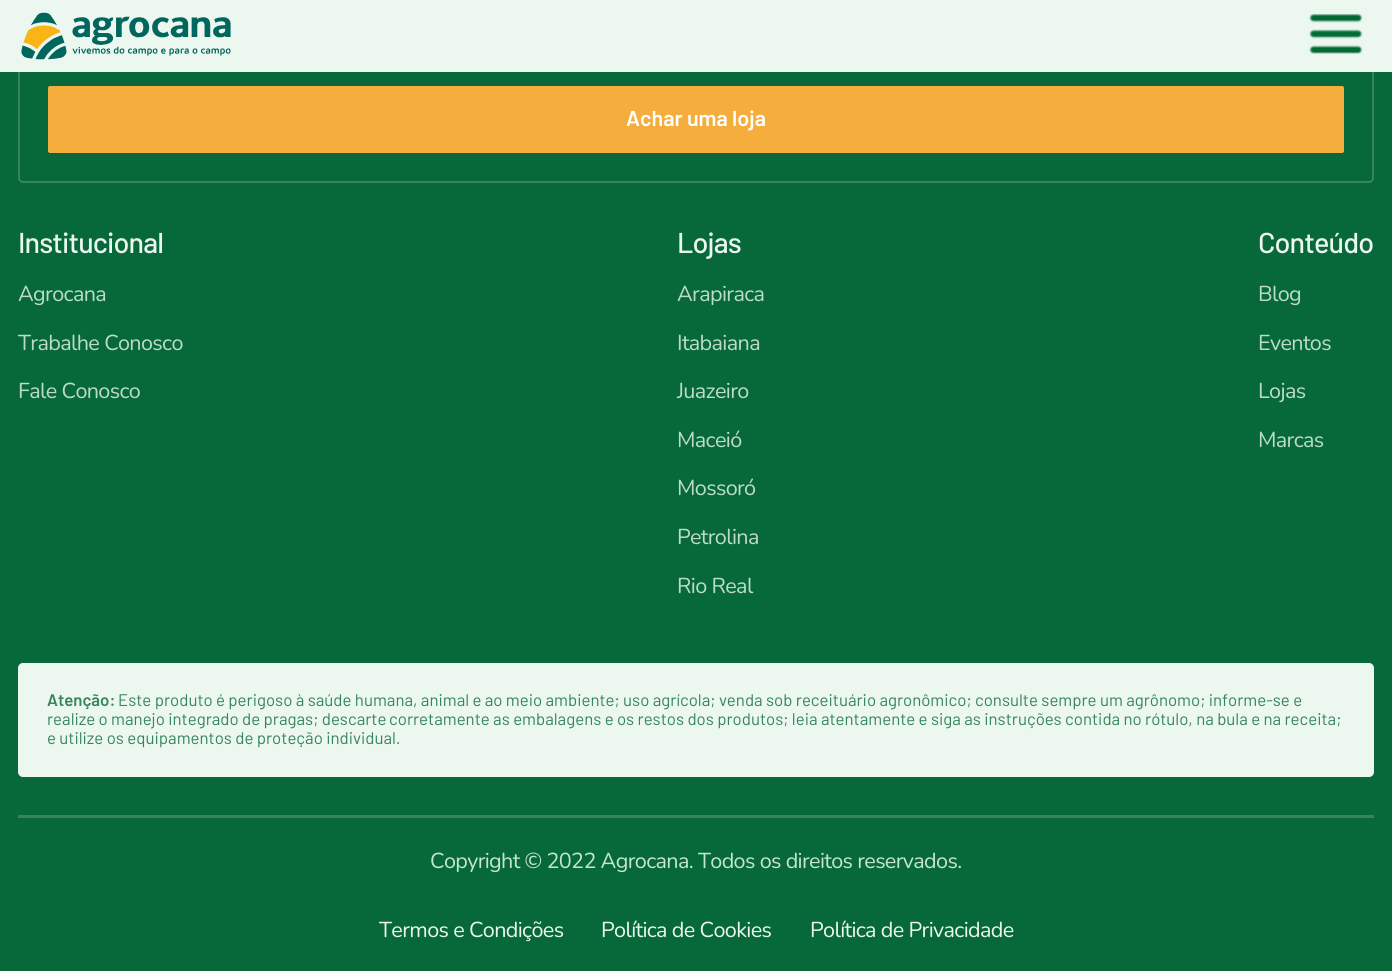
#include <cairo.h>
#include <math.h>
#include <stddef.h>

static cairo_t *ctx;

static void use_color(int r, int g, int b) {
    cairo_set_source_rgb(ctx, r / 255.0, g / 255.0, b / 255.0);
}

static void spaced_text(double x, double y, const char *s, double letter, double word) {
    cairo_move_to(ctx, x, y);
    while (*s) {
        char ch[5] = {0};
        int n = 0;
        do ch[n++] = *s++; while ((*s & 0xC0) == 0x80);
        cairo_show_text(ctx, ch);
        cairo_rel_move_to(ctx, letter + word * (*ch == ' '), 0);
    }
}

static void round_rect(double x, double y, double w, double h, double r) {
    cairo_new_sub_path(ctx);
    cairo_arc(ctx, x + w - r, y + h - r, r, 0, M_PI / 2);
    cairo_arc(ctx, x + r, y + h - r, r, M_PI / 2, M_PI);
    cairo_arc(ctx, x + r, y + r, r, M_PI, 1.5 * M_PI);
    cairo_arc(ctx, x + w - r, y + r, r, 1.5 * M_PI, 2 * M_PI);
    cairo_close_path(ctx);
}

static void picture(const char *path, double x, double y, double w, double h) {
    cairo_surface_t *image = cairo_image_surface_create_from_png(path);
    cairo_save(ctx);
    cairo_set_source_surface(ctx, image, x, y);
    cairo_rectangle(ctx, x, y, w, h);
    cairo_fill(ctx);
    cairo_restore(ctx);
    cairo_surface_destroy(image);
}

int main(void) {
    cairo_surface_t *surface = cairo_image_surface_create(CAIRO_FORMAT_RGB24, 1392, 971);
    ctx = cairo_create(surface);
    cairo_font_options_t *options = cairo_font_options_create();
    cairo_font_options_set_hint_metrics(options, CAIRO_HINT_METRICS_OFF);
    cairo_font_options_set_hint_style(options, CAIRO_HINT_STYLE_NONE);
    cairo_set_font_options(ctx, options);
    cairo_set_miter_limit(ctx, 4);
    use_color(7, 105, 57);
    cairo_paint(ctx);
    round_rect(19, 1, 1354, 181, 4);
    use_color(53, 133, 93);
    cairo_stroke(ctx);
    use_color(235, 247, 239);
    cairo_rectangle(ctx, 0, 0, 1392, 72);
    cairo_fill(ctx);
    picture("img1.png", 21, 12, 210, 48);
    picture("img2.png", 1309, 14, 54, 40);
    use_color(245, 174, 61);
    round_rect(48, 86, 1296, 67, 2);
    cairo_fill(ctx);
    cairo_select_font_face(ctx, "Barlow SemiBold", CAIRO_FONT_SLANT_NORMAL, CAIRO_FONT_WEIGHT_NORMAL);
    cairo_set_font_size(ctx, 21.6);
    use_color(255, 255, 255);
    cairo_move_to(ctx, 626, 126);
    cairo_show_text(ctx, "Achar uma loja");
    cairo_select_font_face(ctx, "Barlow Medium", CAIRO_FONT_SLANT_NORMAL, CAIRO_FONT_WEIGHT_NORMAL);
    cairo_set_font_size(ctx, 28.75);
    use_color(235, 247, 239);
    spaced_text(18, 253, "Institucional", -0.9, 0);
    cairo_select_font_face(ctx, "Nunito", CAIRO_FONT_SLANT_NORMAL, CAIRO_FONT_WEIGHT_NORMAL);
    cairo_set_font_size(ctx, 21.6);
    use_color(189, 219, 203);
    spaced_text(18, 301, "Agrocana", -0.65, 0);
    spaced_text(18, 350, "Trabalhe Conosco", -0.65, 0);
    spaced_text(18, 398, "Fale Conosco", -0.65, 0);
    cairo_select_font_face(ctx, "Barlow Medium", CAIRO_FONT_SLANT_NORMAL, CAIRO_FONT_WEIGHT_NORMAL);
    cairo_set_font_size(ctx, 28.75);
    use_color(235, 247, 239);
    spaced_text(677, 253, "Lojas", -0.9, 0);
    cairo_select_font_face(ctx, "Nunito", CAIRO_FONT_SLANT_NORMAL, CAIRO_FONT_WEIGHT_NORMAL);
    cairo_set_font_size(ctx, 21.6);
    use_color(189, 219, 203);
    spaced_text(677, 301, "Arapiraca", -0.65, 0);
    spaced_text(677, 350, "Itabaiana", -0.65, 0);
    spaced_text(677, 398, "Juazeiro", -0.65, 0);
    spaced_text(677, 447, "Maceió", -0.65, 0);
    spaced_text(677, 495, "Mossoró", -0.65, 0);
    spaced_text(677, 544, "Petrolina", -0.65, 0);
    spaced_text(677, 593, "Rio Real", -0.65, 0);
    cairo_select_font_face(ctx, "Barlow Medium", CAIRO_FONT_SLANT_NORMAL, CAIRO_FONT_WEIGHT_NORMAL);
    cairo_set_font_size(ctx, 28.75);
    use_color(235, 247, 239);
    spaced_text(1258, 253, "Conteúdo", -0.9, 0);
    cairo_select_font_face(ctx, "Nunito", CAIRO_FONT_SLANT_NORMAL, CAIRO_FONT_WEIGHT_NORMAL);
    cairo_set_font_size(ctx, 21.6);
    use_color(189, 219, 203);
    spaced_text(1258, 301, "Blog", -0.65, 0);
    spaced_text(1258, 350, "Eventos", -0.65, 0);
    spaced_text(1258, 398, "Lojas", -0.65, 0);
    spaced_text(1258, 447, "Marcas", -0.65, 0);
    use_color(53, 133, 93);
    cairo_rectangle(ctx, 18, 815, 1356, 3);
    cairo_fill(ctx);
    use_color(235, 247, 239);
    round_rect(18, 663, 1356, 114, 5);
    cairo_fill(ctx);
    cairo_select_font_face(ctx, "Barlow SemiBold", CAIRO_FONT_SLANT_NORMAL, CAIRO_FONT_WEIGHT_NORMAL);
    cairo_set_font_size(ctx, 16.8);
    use_color(53, 133, 93);
    cairo_move_to(ctx, 47, 706);
    cairo_show_text(ctx, "Atenção:");
    cairo_select_font_face(ctx, "Barlow", CAIRO_FONT_SLANT_NORMAL, CAIRO_FONT_WEIGHT_NORMAL);
    cairo_move_to(ctx, 118, 706);
    cairo_show_text(ctx, "Este produto é perigoso à saúde humana, animal e ao meio ambiente; uso agrícola; venda sob receituário agronômico; consulte sempre um agrônomo; informe-se e");
    cairo_move_to(ctx, 47, 725);
    cairo_show_text(ctx, "realize o manejo integrado de pragas; descarte");
    cairo_move_to(ctx, 389, 725);
    cairo_show_text(ctx, "corretamente as embalagens e os restos dos produtos; leia atentamente e siga as instruções contida no rótulo, na bula e na receita;");
    cairo_move_to(ctx, 47, 744);
    cairo_show_text(ctx, "e utilize os equipamentos de proteção individual.");
    cairo_select_font_face(ctx, "Nunito", CAIRO_FONT_SLANT_NORMAL, CAIRO_FONT_WEIGHT_NORMAL);
    cairo_set_font_size(ctx, 21.6);
    use_color(196, 230, 209);
    spaced_text(430, 868, "Copyright © 2022 Agrocana. Todos os direitos reservados.", -0.65, 0);
    use_color(235, 247, 239);
    spaced_text(379, 937, "Termos e Condições", -0.65, 0);
    spaced_text(601, 937, "Política de Cookies", -0.65, 0);
    spaced_text(810, 937, "Política de Privacidade", -0.65, 0);
    cairo_surface_write_to_png(surface, "result.png");
    cairo_font_options_destroy(options);
    cairo_destroy(ctx);
    cairo_surface_destroy(surface);
    return 0;
}
